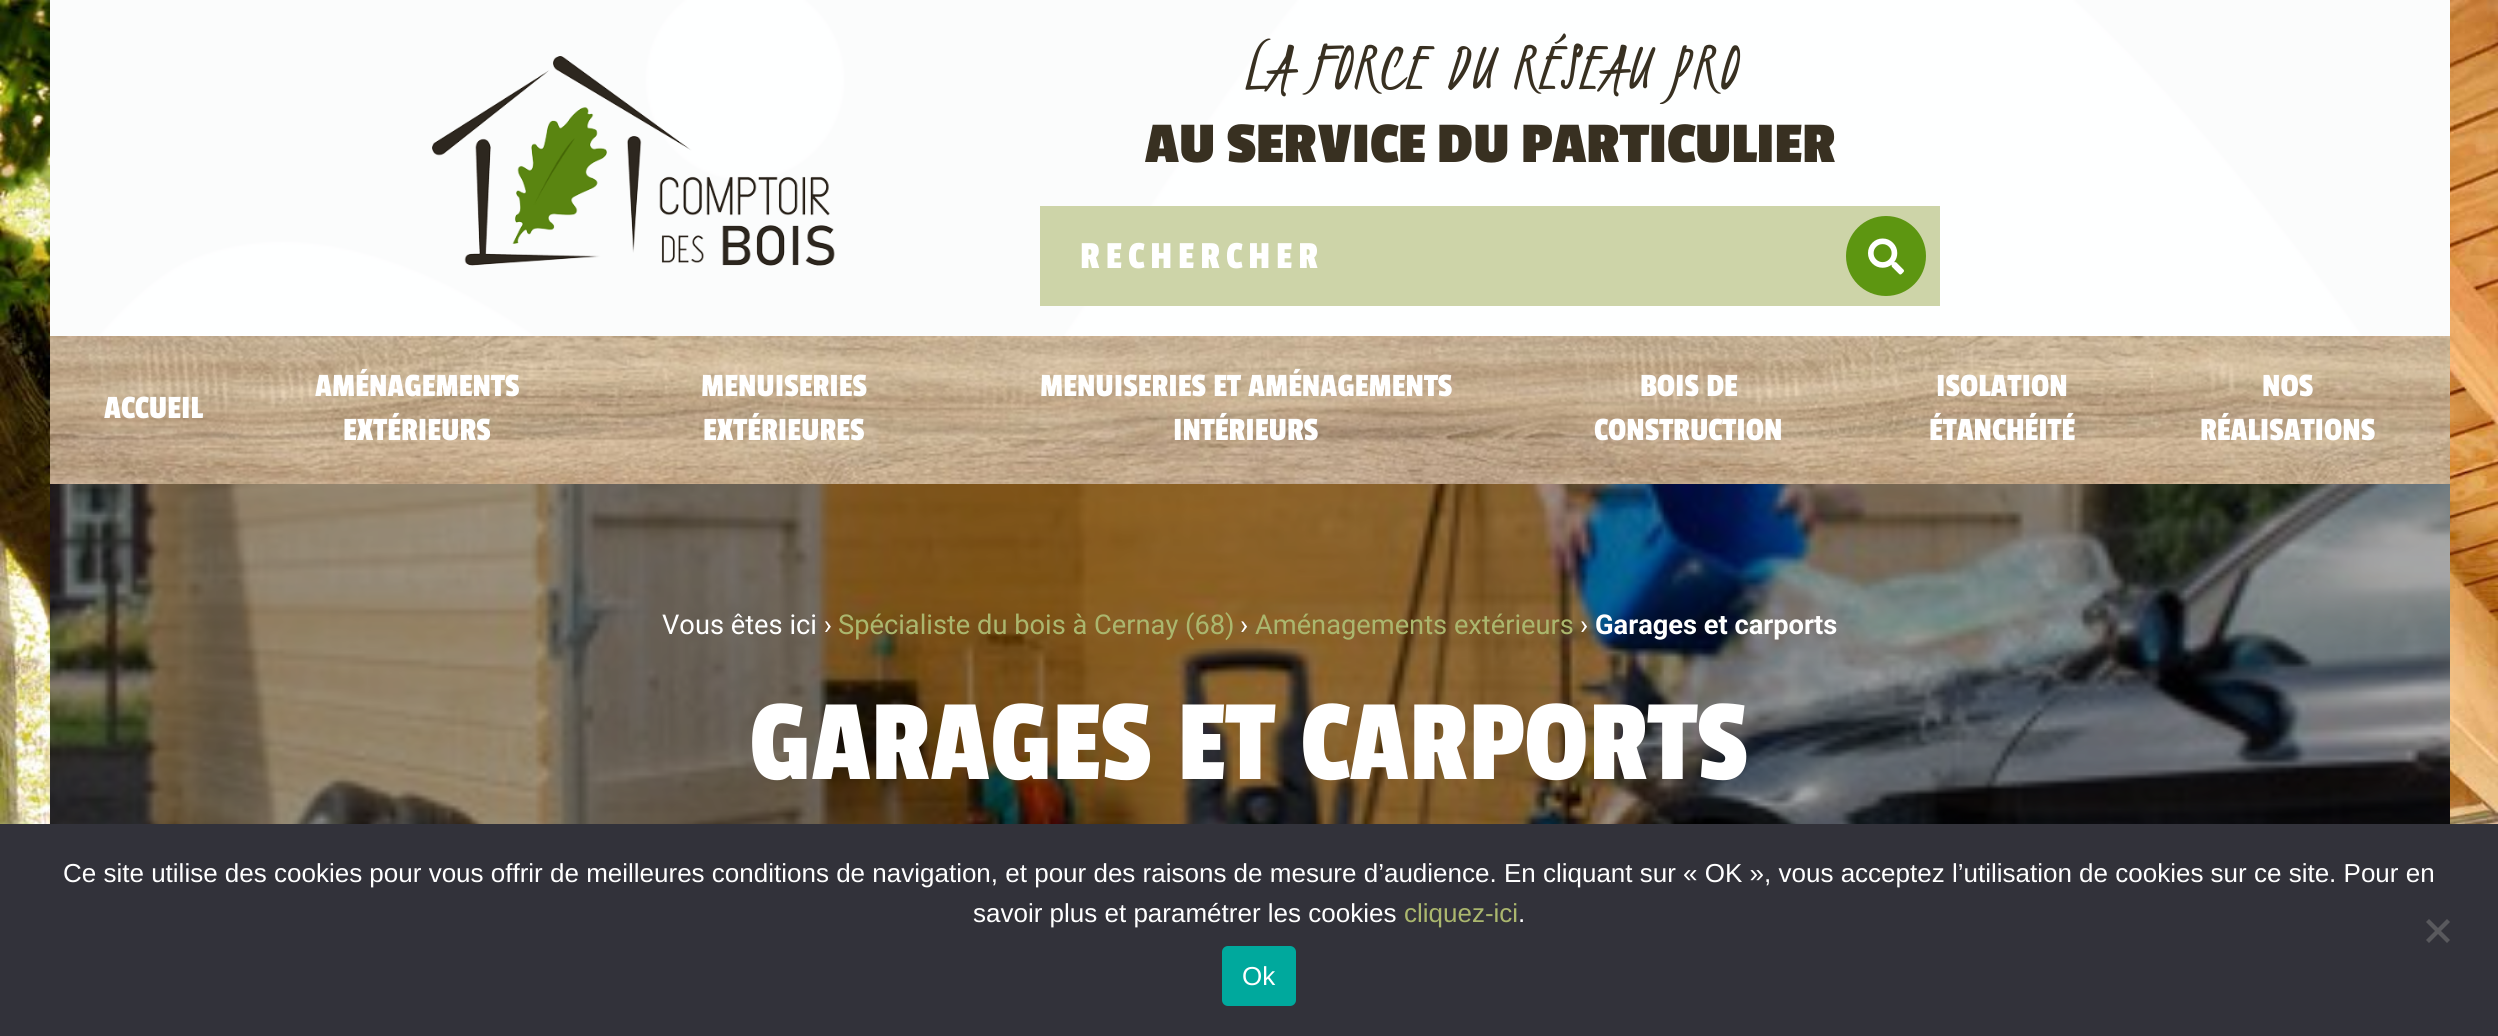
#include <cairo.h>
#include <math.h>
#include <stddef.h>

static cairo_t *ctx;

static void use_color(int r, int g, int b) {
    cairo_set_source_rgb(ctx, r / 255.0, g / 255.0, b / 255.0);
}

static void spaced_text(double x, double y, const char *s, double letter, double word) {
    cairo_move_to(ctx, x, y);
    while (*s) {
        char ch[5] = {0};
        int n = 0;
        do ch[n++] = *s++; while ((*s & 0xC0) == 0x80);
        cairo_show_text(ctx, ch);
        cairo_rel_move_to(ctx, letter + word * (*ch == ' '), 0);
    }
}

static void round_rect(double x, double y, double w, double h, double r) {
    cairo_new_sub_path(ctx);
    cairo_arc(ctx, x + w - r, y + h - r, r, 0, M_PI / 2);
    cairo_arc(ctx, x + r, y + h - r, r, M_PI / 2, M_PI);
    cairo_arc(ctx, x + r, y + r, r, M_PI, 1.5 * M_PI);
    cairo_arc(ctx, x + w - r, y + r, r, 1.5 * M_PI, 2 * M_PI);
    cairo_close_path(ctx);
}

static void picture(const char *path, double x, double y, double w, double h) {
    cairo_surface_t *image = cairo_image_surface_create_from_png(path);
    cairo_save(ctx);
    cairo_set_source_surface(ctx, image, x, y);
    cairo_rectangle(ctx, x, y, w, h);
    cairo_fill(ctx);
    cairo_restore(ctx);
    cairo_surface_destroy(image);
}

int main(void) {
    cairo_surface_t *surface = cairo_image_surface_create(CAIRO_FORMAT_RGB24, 2498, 1036);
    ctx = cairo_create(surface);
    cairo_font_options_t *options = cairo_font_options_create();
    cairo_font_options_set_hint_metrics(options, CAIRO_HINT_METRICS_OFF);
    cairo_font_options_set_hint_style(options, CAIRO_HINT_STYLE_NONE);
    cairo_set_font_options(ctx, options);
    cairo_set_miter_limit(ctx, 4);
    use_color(255, 255, 255);
    cairo_paint(ctx);
    picture("img1.png", 0, 0, 2498, 824);
    use_color(255, 255, 255);
    cairo_rectangle(ctx, 50, 0, 2400, 336);
    cairo_fill(ctx);
    picture("img2.png", 50, 0, 2400, 336);
    picture("img3.png", 432, 56, 403, 210);
    cairo_select_font_face(ctx, "Kristi", CAIRO_FONT_SLANT_NORMAL, CAIRO_FONT_WEIGHT_NORMAL);
    cairo_set_font_size(ctx, 76);
    use_color(56, 48, 33);
    cairo_move_to(ctx, 1244, 88);
    cairo_show_text(ctx, "LA FORCE DU RÉSEAU PRO");
    cairo_select_font_face(ctx, "Passion One", CAIRO_FONT_SLANT_NORMAL, CAIRO_FONT_WEIGHT_BOLD);
    cairo_set_font_size(ctx, 60);
    cairo_move_to(ctx, 1145, 162);
    cairo_show_text(ctx, "AU SERVICE DU PARTICULIER");
    use_color(205, 212, 168);
    cairo_rectangle(ctx, 1040, 206, 900, 100);
    cairo_fill(ctx);
    cairo_select_font_face(ctx, "Passion One", CAIRO_FONT_SLANT_NORMAL, CAIRO_FONT_WEIGHT_NORMAL);
    cairo_set_font_size(ctx, 40);
    use_color(255, 255, 255);
    spaced_text(1080, 268, "RECHERCHER", 6, 0);
    use_color(93, 150, 17);
    cairo_new_path(ctx);
    cairo_arc(ctx, 1886, 256, 40, 0, 2 * M_PI);
    cairo_fill(ctx);
    picture("img4.png", 1868, 238, 36, 37);
    picture("img5.png", 50, 336, 2400, 148);
    cairo_set_font_size(ctx, 34);
    use_color(255, 255, 255);
    cairo_move_to(ctx, 104, 418);
    cairo_show_text(ctx, "ACCUEIL");
    cairo_move_to(ctx, 315, 396);
    cairo_show_text(ctx, "AMÉNAGEMENTS");
    cairo_move_to(ctx, 343, 440);
    cairo_show_text(ctx, "EXTÉRIEURS");
    cairo_move_to(ctx, 701, 396);
    cairo_show_text(ctx, "MENUISERIES");
    cairo_move_to(ctx, 703, 440);
    cairo_show_text(ctx, "EXTÉRIEURES");
    cairo_move_to(ctx, 1040, 396);
    cairo_show_text(ctx, "MENUISERIES ET AMÉNAGEMENTS");
    cairo_move_to(ctx, 1173, 440);
    cairo_show_text(ctx, "INTÉRIEURS");
    cairo_move_to(ctx, 1640, 396);
    cairo_show_text(ctx, "BOIS DE");
    cairo_move_to(ctx, 1594, 440);
    cairo_show_text(ctx, "CONSTRUCTION");
    cairo_move_to(ctx, 1936, 396);
    cairo_show_text(ctx, "ISOLATION");
    cairo_move_to(ctx, 1929, 440);
    cairo_show_text(ctx, "ÉTANCHÉITÉ");
    cairo_move_to(ctx, 2262, 396);
    cairo_show_text(ctx, "NOS");
    cairo_move_to(ctx, 2200, 440);
    cairo_show_text(ctx, "RÉALISATIONS");
    picture("img6.png", 50, 484, 2400, 340);
    cairo_select_font_face(ctx, "Roboto", CAIRO_FONT_SLANT_NORMAL, CAIRO_FONT_WEIGHT_NORMAL);
    cairo_set_font_size(ctx, 27.25);
    cairo_move_to(ctx, 662, 634);
    cairo_show_text(ctx, "Vous êtes ici ›");
    use_color(171, 183, 110);
    cairo_move_to(ctx, 838, 634);
    cairo_show_text(ctx, "Spécialiste du bois à Cernay (68)");
    use_color(255, 255, 255);
    cairo_move_to(ctx, 1240, 634);
    cairo_show_text(ctx, "›");
    use_color(171, 183, 110);
    cairo_move_to(ctx, 1255, 634);
    cairo_show_text(ctx, "Aménagements extérieurs");
    use_color(255, 255, 255);
    cairo_move_to(ctx, 1580, 634);
    cairo_show_text(ctx, "›");
    cairo_select_font_face(ctx, "Roboto", CAIRO_FONT_SLANT_NORMAL, CAIRO_FONT_WEIGHT_BOLD);
    cairo_move_to(ctx, 1595, 634);
    cairo_show_text(ctx, "Garages et carports");
    cairo_select_font_face(ctx, "Passion One", CAIRO_FONT_SLANT_NORMAL, CAIRO_FONT_WEIGHT_NORMAL);
    cairo_set_font_size(ctx, 120);
    cairo_move_to(ctx, 749, 779);
    cairo_show_text(ctx, "GARAGES ET CARPORTS");
    use_color(50, 50, 58);
    cairo_rectangle(ctx, 0, 824, 2498, 212);
    cairo_fill(ctx);
    cairo_select_font_face(ctx, "Liberation Sans", CAIRO_FONT_SLANT_NORMAL, CAIRO_FONT_WEIGHT_NORMAL);
    cairo_set_font_size(ctx, 26);
    use_color(255, 255, 255);
    cairo_move_to(ctx, 63, 882);
    cairo_show_text(ctx, "Ce site utilise des cookies pour vous offrir de meilleures conditions de navigation, et pour des raisons de mesure d’audience. En cliquant sur « OK », vous acceptez l’utilisation de cookies sur ce site. Pour en");
    cairo_move_to(ctx, 973, 922);
    cairo_show_text(ctx, "savoir plus et paramétrer les cookies");
    use_color(171, 183, 110);
    cairo_move_to(ctx, 1404, 922);
    cairo_show_text(ctx, "cliquez-ici");
    use_color(255, 255, 255);
    cairo_move_to(ctx, 1518, 922);
    cairo_show_text(ctx, ".");
    use_color(89, 89, 93);
    cairo_new_path(ctx);
    cairo_move_to(ctx, 2447, 919);
    cairo_line_to(ctx, 2450, 922);
    cairo_line_to(ctx, 2429, 943);
    cairo_line_to(ctx, 2426, 940);
    cairo_close_path(ctx);
    cairo_fill(ctx);
    cairo_new_path(ctx);
    cairo_move_to(ctx, 2426, 922);
    cairo_line_to(ctx, 2429, 919);
    cairo_line_to(ctx, 2450, 940);
    cairo_line_to(ctx, 2447, 943);
    cairo_close_path(ctx);
    cairo_fill(ctx);
    use_color(0, 169, 157);
    round_rect(1222, 946, 74, 60, 6);
    cairo_fill(ctx);
    use_color(255, 255, 255);
    cairo_move_to(ctx, 1242, 985);
    cairo_show_text(ctx, "Ok");
    cairo_surface_write_to_png(surface, "result.png");
    cairo_font_options_destroy(options);
    cairo_destroy(ctx);
    cairo_surface_destroy(surface);
    return 0;
}
